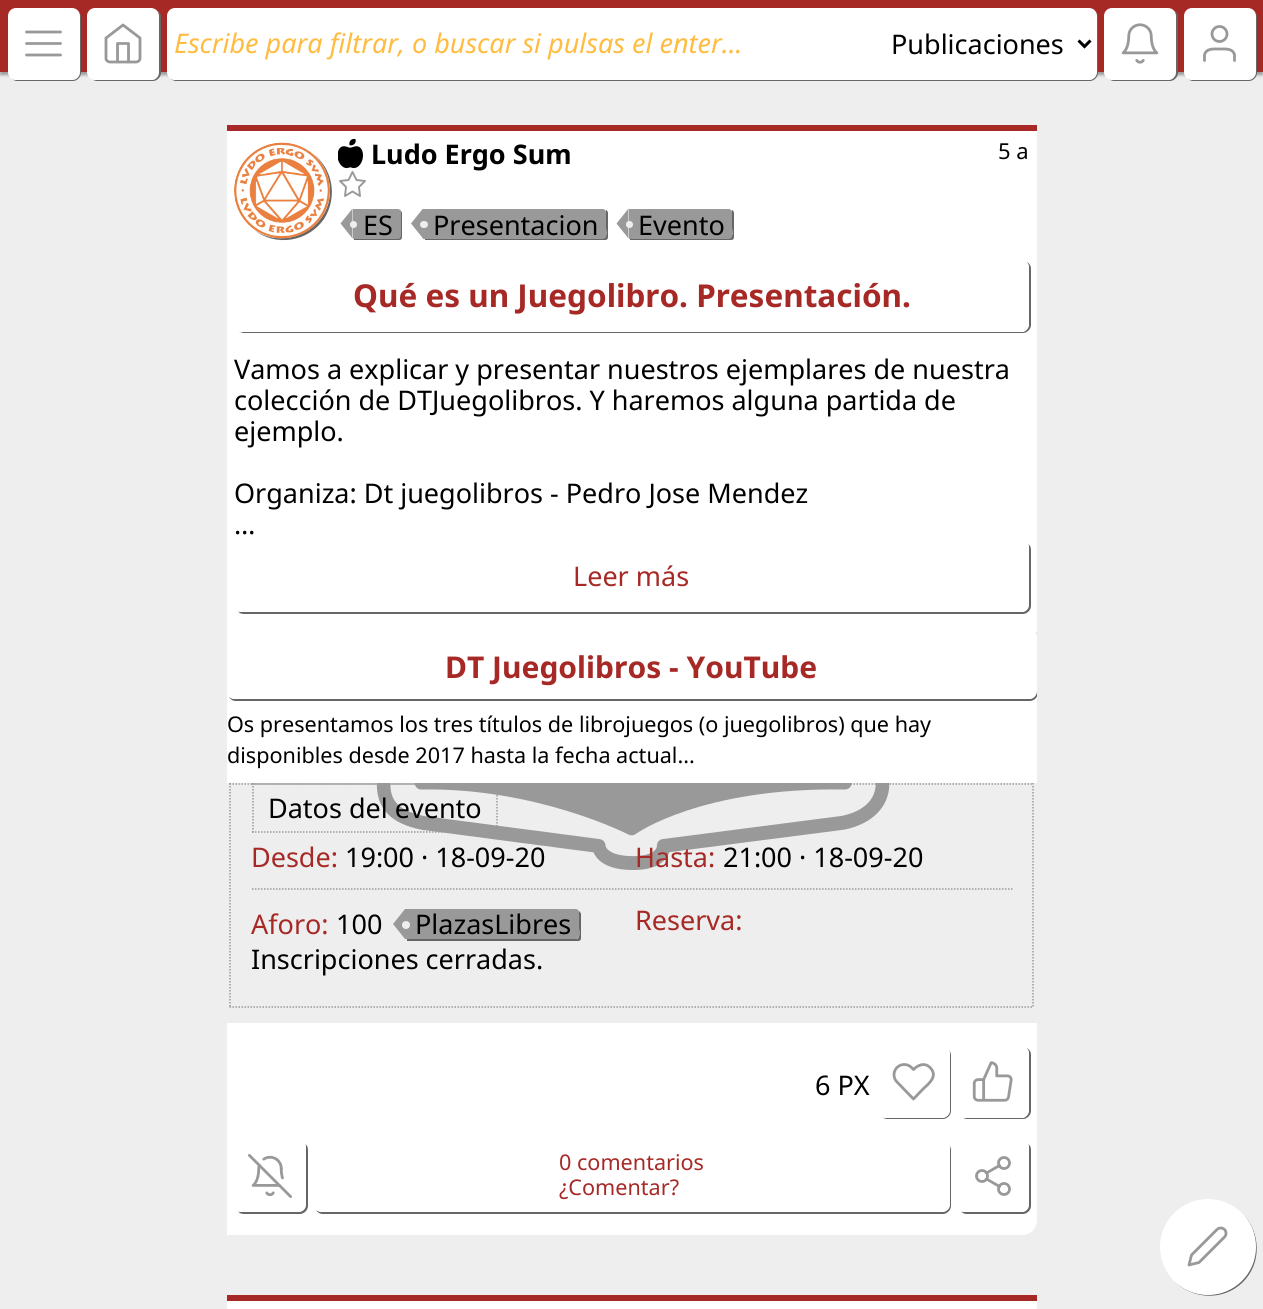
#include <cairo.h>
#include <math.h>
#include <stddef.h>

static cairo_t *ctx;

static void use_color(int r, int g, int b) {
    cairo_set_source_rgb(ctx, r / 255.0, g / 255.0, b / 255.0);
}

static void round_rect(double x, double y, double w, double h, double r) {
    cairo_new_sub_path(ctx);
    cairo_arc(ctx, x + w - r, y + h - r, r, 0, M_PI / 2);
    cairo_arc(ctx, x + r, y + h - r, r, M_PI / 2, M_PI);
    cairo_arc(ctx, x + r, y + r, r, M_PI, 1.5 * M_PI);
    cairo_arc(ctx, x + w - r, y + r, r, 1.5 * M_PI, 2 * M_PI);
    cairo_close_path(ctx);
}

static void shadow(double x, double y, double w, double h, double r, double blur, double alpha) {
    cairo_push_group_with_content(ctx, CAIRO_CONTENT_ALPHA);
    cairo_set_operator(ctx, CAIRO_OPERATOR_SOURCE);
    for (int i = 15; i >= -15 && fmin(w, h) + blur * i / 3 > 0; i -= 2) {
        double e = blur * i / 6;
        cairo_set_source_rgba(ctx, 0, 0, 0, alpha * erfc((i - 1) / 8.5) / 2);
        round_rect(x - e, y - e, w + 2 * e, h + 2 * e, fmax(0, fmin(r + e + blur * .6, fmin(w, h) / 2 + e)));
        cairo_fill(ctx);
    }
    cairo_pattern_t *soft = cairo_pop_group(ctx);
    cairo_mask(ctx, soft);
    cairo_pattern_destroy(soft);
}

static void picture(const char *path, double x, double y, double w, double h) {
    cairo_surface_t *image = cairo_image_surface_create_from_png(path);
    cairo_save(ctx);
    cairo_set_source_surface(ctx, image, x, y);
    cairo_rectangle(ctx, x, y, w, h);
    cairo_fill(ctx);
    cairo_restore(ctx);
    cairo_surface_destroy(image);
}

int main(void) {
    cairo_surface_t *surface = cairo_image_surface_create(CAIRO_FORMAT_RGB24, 1263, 1309);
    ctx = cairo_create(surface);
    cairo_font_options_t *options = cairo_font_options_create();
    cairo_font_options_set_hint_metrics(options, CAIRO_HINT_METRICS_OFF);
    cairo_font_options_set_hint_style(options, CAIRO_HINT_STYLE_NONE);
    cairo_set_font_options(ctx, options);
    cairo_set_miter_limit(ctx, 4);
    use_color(238, 238, 238);
    cairo_paint(ctx);
    use_color(153, 153, 153);
    shadow(0, 3, 1263, 72, 0, 1.5, 1);
    use_color(166, 41, 38);
    cairo_rectangle(ctx, 0, 0, 1263, 72);
    cairo_fill(ctx);
    use_color(102, 102, 102);
    cairo_new_path(ctx);
    cairo_move_to(ctx, 11, 78);
    cairo_curve_to(ctx, 13, 80, 15, 81, 17, 81);
    cairo_line_to(ctx, 73, 81);
    cairo_curve_to(ctx, 77, 81, 81, 77, 81, 73);
    cairo_line_to(ctx, 81, 17);
    cairo_curve_to(ctx, 81, 15, 80, 13, 78, 11);
    cairo_curve_to(ctx, 79, 12, 80, 14, 80, 15);
    cairo_line_to(ctx, 80, 72);
    cairo_curve_to(ctx, 80, 76, 76, 80, 72, 80);
    cairo_line_to(ctx, 15, 80);
    cairo_curve_to(ctx, 14, 80, 12, 79, 11, 78);
    cairo_close_path(ctx);
    cairo_fill(ctx);
    use_color(255, 255, 255);
    round_rect(8, 8, 72, 72, 8);
    cairo_fill(ctx);
    cairo_new_path(ctx);
    cairo_move_to(ctx, 26.5, 43.5);
    cairo_line_to(ctx, 60.5, 43.5);
    cairo_move_to(ctx, 26.5, 32);
    cairo_line_to(ctx, 60.5, 32);
    cairo_move_to(ctx, 26.5, 55);
    cairo_line_to(ctx, 60.5, 55);
    use_color(153, 153, 153);
    cairo_set_line_width(ctx, 2.8);
    cairo_set_line_cap(ctx, CAIRO_LINE_CAP_ROUND);
    cairo_set_line_join(ctx, CAIRO_LINE_JOIN_ROUND);
    cairo_stroke(ctx);
    use_color(102, 102, 102);
    cairo_new_path(ctx);
    cairo_move_to(ctx, 92, 79);
    cairo_curve_to(ctx, 93, 80, 95, 81, 97, 81);
    cairo_line_to(ctx, 153, 81);
    cairo_curve_to(ctx, 157, 81, 161, 77, 161, 73);
    cairo_line_to(ctx, 161, 17);
    cairo_curve_to(ctx, 161, 14, 160, 12, 157, 10);
    cairo_curve_to(ctx, 158, 12, 159, 13, 159, 15);
    cairo_line_to(ctx, 159, 72);
    cairo_curve_to(ctx, 159, 76, 156, 80, 152, 80);
    cairo_line_to(ctx, 94, 80);
    cairo_close_path(ctx);
    cairo_fill(ctx);
    use_color(255, 255, 255);
    round_rect(87, 8, 72, 72, 8);
    cairo_fill(ctx);
    cairo_new_path(ctx);
    cairo_move_to(ctx, 106, 38);
    cairo_line_to(ctx, 123, 25);
    cairo_line_to(ctx, 140, 38);
    cairo_line_to(ctx, 140, 58.5);
    cairo_curve_to(ctx, 140, 60.5, 138, 62, 136, 62);
    cairo_line_to(ctx, 110, 62);
    cairo_curve_to(ctx, 108, 62, 106, 60.5, 106, 58.5);
    cairo_close_path(ctx);
    cairo_move_to(ctx, 117.5, 62);
    cairo_line_to(ctx, 117.5, 43.5);
    cairo_line_to(ctx, 128.5, 43.5);
    cairo_line_to(ctx, 128.5, 62);
    use_color(153, 153, 153);
    cairo_stroke(ctx);
    use_color(102, 102, 102);
    cairo_new_path(ctx);
    cairo_move_to(ctx, 170, 78);
    cairo_curve_to(ctx, 172, 80, 174, 81, 176, 81);
    cairo_line_to(ctx, 881, 81);
    cairo_line_to(ctx, 881, 9);
    cairo_line_to(ctx, 879, 9);
    cairo_line_to(ctx, 879, 80);
    cairo_line_to(ctx, 174, 80);
    cairo_close_path(ctx);
    cairo_fill(ctx);
    use_color(255, 255, 255);
    cairo_new_path(ctx);
    cairo_move_to(ctx, 175, 8);
    cairo_line_to(ctx, 879, 8);
    cairo_line_to(ctx, 879, 80);
    cairo_line_to(ctx, 175, 80);
    cairo_curve_to(ctx, 170.5, 80, 167, 76.5, 167, 72);
    cairo_line_to(ctx, 167, 16);
    cairo_curve_to(ctx, 167, 11.5, 170.5, 8, 175, 8);
    cairo_close_path(ctx);
    cairo_fill(ctx);
    cairo_select_font_face(ctx, "Noto Sans", CAIRO_FONT_SLANT_ITALIC, CAIRO_FONT_WEIGHT_NORMAL);
    cairo_set_font_size(ctx, 27);
    use_color(255, 188, 64);
    cairo_move_to(ctx, 174, 53);
    cairo_show_text(ctx, "Escribe para filtrar, o buscar si pulsas el enter...");
    use_color(102, 102, 102);
    cairo_new_path(ctx);
    cairo_move_to(ctx, 879, 80);
    cairo_line_to(ctx, 879, 81);
    cairo_line_to(ctx, 1090, 81);
    cairo_curve_to(ctx, 1094, 81, 1098, 77, 1098, 73);
    cairo_line_to(ctx, 1098, 17);
    cairo_curve_to(ctx, 1098, 15, 1097, 13, 1095, 11);
    cairo_curve_to(ctx, 1096, 12, 1096, 14, 1096, 15);
    cairo_line_to(ctx, 1096, 72);
    cairo_curve_to(ctx, 1096, 76, 1093, 80, 1089, 80);
    cairo_close_path(ctx);
    cairo_fill(ctx);
    use_color(255, 255, 255);
    cairo_new_path(ctx);
    cairo_move_to(ctx, 878, 8);
    cairo_line_to(ctx, 1089, 8);
    cairo_curve_to(ctx, 1093.5, 8, 1097, 11.5, 1097, 16);
    cairo_line_to(ctx, 1097, 72);
    cairo_curve_to(ctx, 1097, 76.5, 1093.5, 80, 1089, 80);
    cairo_line_to(ctx, 878, 80);
    cairo_close_path(ctx);
    cairo_fill(ctx);
    cairo_new_path(ctx);
    cairo_move_to(ctx, 1078.5, 40.5);
    cairo_line_to(ctx, 1084.5, 46.5);
    cairo_line_to(ctx, 1090.5, 40.5);
    use_color(0, 0, 0);
    cairo_set_line_width(ctx, 3);
    cairo_set_line_cap(ctx, CAIRO_LINE_CAP_BUTT);
    cairo_set_line_join(ctx, CAIRO_LINE_JOIN_MITER);
    cairo_stroke(ctx);
    cairo_select_font_face(ctx, "Noto Sans", CAIRO_FONT_SLANT_NORMAL, CAIRO_FONT_WEIGHT_NORMAL);
    cairo_move_to(ctx, 891, 54);
    cairo_show_text(ctx, "Publicaciones");
    use_color(102, 102, 102);
    cairo_new_path(ctx);
    cairo_move_to(ctx, 1109, 79);
    cairo_curve_to(ctx, 1110, 80, 1112, 81, 1114, 81);
    cairo_line_to(ctx, 1170, 81);
    cairo_curve_to(ctx, 1174, 81, 1178, 77, 1178, 73);
    cairo_line_to(ctx, 1178, 17);
    cairo_curve_to(ctx, 1178, 14, 1177, 12, 1174, 10);
    cairo_curve_to(ctx, 1175, 12, 1176, 13, 1176, 15);
    cairo_line_to(ctx, 1176, 72);
    cairo_curve_to(ctx, 1176, 76, 1173, 80, 1168, 80);
    cairo_line_to(ctx, 1112, 80);
    cairo_close_path(ctx);
    cairo_fill(ctx);
    use_color(255, 255, 255);
    round_rect(1104, 8, 72, 72, 8);
    cairo_fill(ctx);
    picture("img1.png", 1121, 23, 38, 41);
    use_color(102, 102, 102);
    cairo_new_path(ctx);
    cairo_move_to(ctx, 1187, 78);
    cairo_curve_to(ctx, 1189, 80, 1191, 81, 1193, 81);
    cairo_line_to(ctx, 1249, 81);
    cairo_curve_to(ctx, 1253, 81, 1257, 77, 1257, 73);
    cairo_line_to(ctx, 1257, 17);
    cairo_curve_to(ctx, 1257, 15, 1256, 13, 1254, 11);
    cairo_curve_to(ctx, 1255, 12, 1256, 14, 1256, 15);
    cairo_line_to(ctx, 1256, 72);
    cairo_curve_to(ctx, 1256, 76, 1252, 80, 1248, 80);
    cairo_line_to(ctx, 1191, 80);
    cairo_curve_to(ctx, 1190, 80, 1188, 79, 1187, 78);
    cairo_close_path(ctx);
    cairo_fill(ctx);
    use_color(255, 255, 255);
    round_rect(1184, 8, 72, 72, 8);
    cairo_fill(ctx);
    cairo_new_path(ctx);
    cairo_move_to(ctx, 1234.5, 60.5);
    cairo_line_to(ctx, 1234.5, 55);
    cairo_curve_to(ctx, 1233, 48, 1225, 49, 1219.5, 49);
    cairo_curve_to(ctx, 1214, 49, 1206, 48, 1204.5, 55);
    cairo_line_to(ctx, 1204.5, 60.5);
    use_color(153, 153, 153);
    cairo_set_line_width(ctx, 2.8);
    cairo_set_line_cap(ctx, CAIRO_LINE_CAP_ROUND);
    cairo_set_line_join(ctx, CAIRO_LINE_JOIN_ROUND);
    cairo_stroke(ctx);
    cairo_arc(ctx, 1219.5, 34, 7.5, 0, 2 * M_PI);
    cairo_set_line_cap(ctx, CAIRO_LINE_CAP_BUTT);
    cairo_set_line_join(ctx, CAIRO_LINE_JOIN_MITER);
    cairo_stroke(ctx);
    use_color(166, 41, 38);
    cairo_rectangle(ctx, 227, 125, 810, 6);
    cairo_fill(ctx);
    use_color(255, 255, 255);
    cairo_rectangle(ctx, 227, 131, 810, 652);
    cairo_fill(ctx);
    use_color(102, 102, 102);
    cairo_new_path(ctx);
    cairo_move_to(ctx, 254, 230);
    cairo_curve_to(ctx, 276, 247, 308, 242, 324, 219);
    cairo_curve_to(ctx, 338, 197, 333, 168, 312, 153);
    cairo_curve_to(ctx, 331, 168, 336, 197, 322, 217);
    cairo_curve_to(ctx, 307, 239, 276, 245, 254, 230);
    cairo_close_path(ctx);
    cairo_fill(ctx);
    picture("img2.png", 234, 142, 96, 97);
    picture("img3.png", 338, 138, 25, 31);
    cairo_select_font_face(ctx, "Noto Sans", CAIRO_FONT_SLANT_NORMAL, CAIRO_FONT_WEIGHT_BOLD);
    use_color(0, 0, 0);
    cairo_move_to(ctx, 371, 164);
    cairo_show_text(ctx, "Ludo Ergo Sum");
    cairo_new_path(ctx);
    cairo_move_to(ctx, 352.5, 172);
    cairo_line_to(ctx, 356.5, 180);
    cairo_line_to(ctx, 365, 181);
    cairo_line_to(ctx, 359, 187);
    cairo_line_to(ctx, 360, 196);
    cairo_line_to(ctx, 352.5, 191.5);
    cairo_line_to(ctx, 345, 196);
    cairo_line_to(ctx, 346, 187);
    cairo_line_to(ctx, 340, 181);
    cairo_line_to(ctx, 348.5, 180);
    cairo_close_path(ctx);
    use_color(153, 153, 153);
    cairo_set_line_width(ctx, 1.9);
    cairo_set_line_cap(ctx, CAIRO_LINE_CAP_ROUND);
    cairo_set_line_join(ctx, CAIRO_LINE_JOIN_ROUND);
    cairo_stroke(ctx);
    use_color(102, 102, 102);
    cairo_new_path(ctx);
    cairo_move_to(ctx, 354, 238);
    cairo_line_to(ctx, 354, 240);
    cairo_line_to(ctx, 399, 240);
    cairo_curve_to(ctx, 401, 240, 402, 239, 402, 237);
    cairo_line_to(ctx, 402, 213);
    cairo_curve_to(ctx, 402, 212, 401, 211, 400, 210);
    cairo_line_to(ctx, 400, 228);
    cairo_curve_to(ctx, 400, 242, 400, 238, 383, 238);
    cairo_close_path(ctx);
    cairo_fill(ctx);
    use_color(153, 153, 153);
    cairo_new_path(ctx);
    cairo_move_to(ctx, 353, 209);
    cairo_line_to(ctx, 398, 209);
    cairo_curve_to(ctx, 399.5, 209, 401, 210.5, 401, 212);
    cairo_line_to(ctx, 401, 236);
    cairo_curve_to(ctx, 401, 237.5, 399.5, 239, 398, 239);
    cairo_line_to(ctx, 353, 239);
    cairo_close_path(ctx);
    cairo_fill(ctx);
    cairo_new_path(ctx);
    cairo_move_to(ctx, 352.5, 208.5);
    cairo_line_to(ctx, 352.5, 238.5);
    cairo_line_to(ctx, 340.5, 223.5);
    cairo_close_path(ctx);
    cairo_fill(ctx);
    use_color(238, 238, 238);
    cairo_arc(ctx, 353.5, 224.5, 3.5, 0, 2 * M_PI);
    cairo_fill(ctx);
    cairo_select_font_face(ctx, "Noto Sans", CAIRO_FONT_SLANT_NORMAL, CAIRO_FONT_WEIGHT_NORMAL);
    use_color(0, 0, 0);
    cairo_move_to(ctx, 363, 235);
    cairo_show_text(ctx, "ES");
    use_color(102, 102, 102);
    cairo_new_path(ctx);
    cairo_move_to(ctx, 425, 238);
    cairo_line_to(ctx, 425, 240);
    cairo_line_to(ctx, 605, 240);
    cairo_curve_to(ctx, 607, 240, 608, 239, 608, 237);
    cairo_line_to(ctx, 608, 213);
    cairo_curve_to(ctx, 608, 212, 607, 210, 606, 210);
    cairo_line_to(ctx, 606, 228);
    cairo_curve_to(ctx, 606, 230, 608, 238, 603, 238);
    cairo_close_path(ctx);
    cairo_fill(ctx);
    use_color(153, 153, 153);
    cairo_new_path(ctx);
    cairo_move_to(ctx, 423, 209);
    cairo_line_to(ctx, 603, 209);
    cairo_curve_to(ctx, 604.5, 209, 606, 210.5, 606, 212);
    cairo_line_to(ctx, 606, 236);
    cairo_curve_to(ctx, 606, 237.5, 604.5, 239, 603, 239);
    cairo_line_to(ctx, 423, 239);
    cairo_close_path(ctx);
    cairo_fill(ctx);
    cairo_new_path(ctx);
    cairo_move_to(ctx, 423, 208.5);
    cairo_line_to(ctx, 423, 238.5);
    cairo_line_to(ctx, 411, 223.5);
    cairo_close_path(ctx);
    cairo_fill(ctx);
    use_color(238, 238, 238);
    round_rect(420, 221, 8, 7, 3.5);
    cairo_fill(ctx);
    use_color(0, 0, 0);
    cairo_move_to(ctx, 433, 235);
    cairo_show_text(ctx, "Presentacion");
    use_color(102, 102, 102);
    cairo_new_path(ctx);
    cairo_move_to(ctx, 630, 238);
    cairo_line_to(ctx, 630, 240);
    cairo_line_to(ctx, 731, 240);
    cairo_curve_to(ctx, 733, 240, 734, 239, 734, 237);
    cairo_line_to(ctx, 734, 213);
    cairo_curve_to(ctx, 734, 212, 733, 210, 732, 210);
    cairo_line_to(ctx, 732, 228);
    cairo_curve_to(ctx, 732, 230, 734, 238, 729, 238);
    cairo_close_path(ctx);
    cairo_fill(ctx);
    use_color(153, 153, 153);
    cairo_new_path(ctx);
    cairo_move_to(ctx, 629, 209);
    cairo_line_to(ctx, 729, 209);
    cairo_curve_to(ctx, 730.5, 209, 732, 210.5, 732, 212);
    cairo_line_to(ctx, 732, 236);
    cairo_curve_to(ctx, 732, 237.5, 730.5, 239, 729, 239);
    cairo_line_to(ctx, 629, 239);
    cairo_close_path(ctx);
    cairo_fill(ctx);
    cairo_new_path(ctx);
    cairo_move_to(ctx, 628.5, 208.5);
    cairo_line_to(ctx, 628.5, 238.5);
    cairo_line_to(ctx, 616.5, 223.5);
    cairo_close_path(ctx);
    cairo_fill(ctx);
    use_color(238, 238, 238);
    cairo_arc(ctx, 629.5, 224.5, 3.5, 0, 2 * M_PI);
    cairo_fill(ctx);
    use_color(0, 0, 0);
    cairo_move_to(ctx, 638, 235);
    cairo_show_text(ctx, "Evento");
    cairo_set_font_size(ctx, 22);
    cairo_move_to(ctx, 998, 159);
    cairo_show_text(ctx, "5 a");
    use_color(102, 102, 102);
    cairo_new_path(ctx);
    cairo_move_to(ctx, 239, 331);
    cairo_curve_to(ctx, 240, 332, 242, 333, 244, 333);
    cairo_line_to(ctx, 1023, 333);
    cairo_curve_to(ctx, 1027, 333, 1031, 329, 1031, 325);
    cairo_line_to(ctx, 1031, 269);
    cairo_curve_to(ctx, 1031, 266, 1030, 264, 1027, 262);
    cairo_curve_to(ctx, 1028, 264, 1029, 265, 1029, 267);
    cairo_line_to(ctx, 1029, 324);
    cairo_curve_to(ctx, 1029, 328, 1026, 332, 1022, 332);
    cairo_line_to(ctx, 242, 332);
    cairo_close_path(ctx);
    cairo_fill(ctx);
    use_color(255, 255, 255);
    round_rect(234, 260, 795, 72, 8);
    cairo_fill(ctx);
    cairo_select_font_face(ctx, "Noto Sans", CAIRO_FONT_SLANT_NORMAL, CAIRO_FONT_WEIGHT_BOLD);
    cairo_set_font_size(ctx, 31.5);
    use_color(166, 41, 38);
    cairo_move_to(ctx, 353, 307);
    cairo_show_text(ctx, "Qué es un Juegolibro. Presentación.");
    cairo_select_font_face(ctx, "Noto Sans", CAIRO_FONT_SLANT_NORMAL, CAIRO_FONT_WEIGHT_NORMAL);
    cairo_set_font_size(ctx, 27);
    use_color(0, 0, 0);
    cairo_move_to(ctx, 234, 379);
    cairo_show_text(ctx, "Vamos a explicar y presentar nuestros ejemplares de nuestra");
    cairo_move_to(ctx, 234, 410);
    cairo_show_text(ctx, "colección de DTJuegolibros. Y haremos alguna partida de");
    cairo_move_to(ctx, 234, 441);
    cairo_show_text(ctx, "ejemplo.");
    cairo_move_to(ctx, 234, 503);
    cairo_show_text(ctx, "Organiza: Dt juegolibros - Pedro Jose Mendez");
    cairo_move_to(ctx, 234, 534);
    cairo_show_text(ctx, "…");
    use_color(102, 102, 102);
    cairo_new_path(ctx);
    cairo_move_to(ctx, 238, 611);
    cairo_curve_to(ctx, 239, 613, 241, 614, 244, 614);
    cairo_line_to(ctx, 1023, 614);
    cairo_curve_to(ctx, 1027, 614, 1031, 610, 1031, 606);
    cairo_line_to(ctx, 1031, 550);
    cairo_curve_to(ctx, 1031, 547, 1030, 545, 1028, 544);
    cairo_curve_to(ctx, 1029, 545, 1029, 546, 1029, 548);
    cairo_line_to(ctx, 1029, 604);
    cairo_curve_to(ctx, 1029, 609, 1026, 612, 1022, 612);
    cairo_line_to(ctx, 242, 612);
    cairo_curve_to(ctx, 240, 612, 239, 612, 238, 611);
    cairo_close_path(ctx);
    cairo_fill(ctx);
    use_color(255, 255, 255);
    round_rect(234, 540, 795, 72, 8);
    cairo_fill(ctx);
    use_color(166, 41, 38);
    cairo_move_to(ctx, 573, 586);
    cairo_show_text(ctx, "Leer más");
    cairo_save(ctx);
    cairo_rectangle(ctx, 227, 131, 810, 1104);
    cairo_clip(ctx);
    use_color(102, 102, 102);
    cairo_new_path(ctx);
    cairo_move_to(ctx, 229, 697);
    cairo_curve_to(ctx, 231, 700, 233, 701, 236, 701);
    cairo_line_to(ctx, 1030, 701);
    cairo_curve_to(ctx, 1034, 701, 1038, 697, 1038, 693);
    cairo_line_to(ctx, 1038, 637);
    cairo_curve_to(ctx, 1038, 635, 1037, 633, 1036, 632);
    cairo_line_to(ctx, 1036, 634);
    cairo_line_to(ctx, 1036, 692);
    cairo_curve_to(ctx, 1036, 696, 1033, 699, 1029, 699);
    cairo_line_to(ctx, 234, 699);
    cairo_curve_to(ctx, 232, 699, 231, 698, 229, 697);
    cairo_close_path(ctx);
    cairo_fill(ctx);
    cairo_restore(ctx);
    use_color(255, 255, 255);
    round_rect(227, 627, 810, 72, 8);
    cairo_fill(ctx);
    cairo_select_font_face(ctx, "Noto Sans", CAIRO_FONT_SLANT_NORMAL, CAIRO_FONT_WEIGHT_BOLD);
    cairo_set_font_size(ctx, 30);
    use_color(166, 41, 38);
    cairo_move_to(ctx, 445, 678);
    cairo_show_text(ctx, "DT Juegolibros - YouTube");
    cairo_select_font_face(ctx, "Noto Sans", CAIRO_FONT_SLANT_NORMAL, CAIRO_FONT_WEIGHT_NORMAL);
    cairo_set_font_size(ctx, 21.6);
    use_color(0, 0, 0);
    cairo_move_to(ctx, 227, 732);
    cairo_show_text(ctx, "Os presentamos los tres títulos de librojuegos (o juegolibros) que hay");
    cairo_move_to(ctx, 227, 763);
    cairo_show_text(ctx, "disponibles desde 2017 hasta la fecha actual...");
    picture("img6.png", 376, 783, 514, 87);
    cairo_new_path(ctx);
    cairo_move_to(ctx, 229.5, 784);
    cairo_line_to(ctx, 1033.5, 784);
    use_color(153, 153, 153);
    cairo_set_line_width(ctx, 1.5);
    cairo_set_line_cap(ctx, CAIRO_LINE_CAP_BUTT);
    cairo_set_line_join(ctx, CAIRO_LINE_JOIN_MITER);
    cairo_set_dash(ctx, (double[]){1.5, 1.5}, 2, 0);
    cairo_stroke(ctx);
    cairo_new_path(ctx);
    cairo_move_to(ctx, 1033, 783);
    cairo_line_to(ctx, 1033, 1008);
    cairo_stroke(ctx);
    cairo_new_path(ctx);
    cairo_move_to(ctx, 229.5, 1007);
    cairo_line_to(ctx, 1033.5, 1007);
    cairo_stroke(ctx);
    cairo_new_path(ctx);
    cairo_move_to(ctx, 230, 783);
    cairo_line_to(ctx, 230, 1008);
    cairo_stroke(ctx);
    cairo_new_path(ctx);
    cairo_move_to(ctx, 252, 784);
    cairo_line_to(ctx, 498, 784);
    cairo_stroke(ctx);
    cairo_new_path(ctx);
    cairo_move_to(ctx, 497, 783);
    cairo_line_to(ctx, 497, 832.5);
    cairo_stroke(ctx);
    cairo_new_path(ctx);
    cairo_move_to(ctx, 252, 832);
    cairo_line_to(ctx, 498, 832);
    cairo_stroke(ctx);
    cairo_new_path(ctx);
    cairo_move_to(ctx, 253, 783);
    cairo_line_to(ctx, 253, 832.5);
    cairo_stroke(ctx);
    cairo_set_font_size(ctx, 27);
    use_color(0, 0, 0);
    cairo_move_to(ctx, 268, 818);
    cairo_show_text(ctx, "Datos del evento");
    use_color(166, 41, 38);
    cairo_move_to(ctx, 251, 867);
    cairo_show_text(ctx, "Desde:");
    use_color(0, 0, 0);
    cairo_move_to(ctx, 345, 867);
    cairo_show_text(ctx, "19:00 · 18-09-20");
    use_color(166, 41, 38);
    cairo_move_to(ctx, 635, 867);
    cairo_show_text(ctx, "Hasta:");
    use_color(0, 0, 0);
    cairo_move_to(ctx, 723, 867);
    cairo_show_text(ctx, "21:00 · 18-09-20");
    cairo_new_path(ctx);
    cairo_move_to(ctx, 252, 889);
    cairo_line_to(ctx, 1012.5, 889);
    use_color(153, 153, 153);
    cairo_stroke(ctx);
    use_color(166, 41, 38);
    cairo_move_to(ctx, 251, 934);
    cairo_show_text(ctx, "Aforo:");
    use_color(0, 0, 0);
    cairo_move_to(ctx, 336, 934);
    cairo_show_text(ctx, "100");
    use_color(102, 102, 102);
    cairo_new_path(ctx);
    cairo_move_to(ctx, 407, 939);
    cairo_line_to(ctx, 407, 941);
    cairo_line_to(ctx, 578, 941);
    cairo_curve_to(ctx, 580, 941, 581, 940, 581, 938);
    cairo_line_to(ctx, 581, 914);
    cairo_curve_to(ctx, 581, 913, 580, 912, 579, 911);
    cairo_line_to(ctx, 579, 928);
    cairo_curve_to(ctx, 579, 930, 581, 939, 576, 939);
    cairo_close_path(ctx);
    cairo_fill(ctx);
    use_color(153, 153, 153);
    cairo_new_path(ctx);
    cairo_move_to(ctx, 405, 909);
    cairo_line_to(ctx, 576, 909);
    cairo_curve_to(ctx, 577.5, 909, 579, 910.5, 579, 912);
    cairo_line_to(ctx, 579, 936);
    cairo_curve_to(ctx, 579, 937.5, 577.5, 939, 576, 939);
    cairo_line_to(ctx, 405, 939);
    cairo_close_path(ctx);
    cairo_fill(ctx);
    cairo_new_path(ctx);
    cairo_move_to(ctx, 405, 909);
    cairo_line_to(ctx, 405, 939);
    cairo_line_to(ctx, 393, 924);
    cairo_close_path(ctx);
    cairo_fill(ctx);
    use_color(238, 238, 238);
    cairo_arc(ctx, 406, 925, 4, 0, 2 * M_PI);
    cairo_fill(ctx);
    use_color(0, 0, 0);
    cairo_move_to(ctx, 415, 934);
    cairo_show_text(ctx, "PlazasLibres");
    use_color(166, 41, 38);
    cairo_move_to(ctx, 635, 930);
    cairo_show_text(ctx, "Reserva:");
    use_color(0, 0, 0);
    cairo_move_to(ctx, 251, 969);
    cairo_show_text(ctx, "Inscripciones cerradas.");
    use_color(255, 255, 255);
    cairo_rectangle(ctx, 227, 1023, 810, 110);
    cairo_fill(ctx);
    use_color(0, 0, 0);
    cairo_move_to(ctx, 815, 1095);
    cairo_show_text(ctx, "6 PX");
    use_color(102, 102, 102);
    cairo_new_path(ctx);
    cairo_move_to(ctx, 881, 1116);
    cairo_curve_to(ctx, 883, 1118, 885, 1119, 887, 1119);
    cairo_line_to(ctx, 943, 1119);
    cairo_curve_to(ctx, 947, 1119, 951, 1115, 951, 1111);
    cairo_line_to(ctx, 951, 1055);
    cairo_curve_to(ctx, 951, 1053, 950, 1051, 948, 1049);
    cairo_curve_to(ctx, 949, 1050, 950, 1052, 950, 1053);
    cairo_line_to(ctx, 950, 1110);
    cairo_curve_to(ctx, 950, 1114, 946, 1118, 942, 1118);
    cairo_line_to(ctx, 885, 1118);
    cairo_curve_to(ctx, 884, 1118, 882, 1117, 881, 1116);
    cairo_close_path(ctx);
    cairo_fill(ctx);
    use_color(255, 255, 255);
    round_rect(878, 1046, 72, 72, 8);
    cairo_fill(ctx);
    cairo_new_path(ctx);
    cairo_move_to(ctx, 930, 1067.5);
    cairo_curve_to(ctx, 924.5, 1062, 918, 1065, 913.5, 1069.5);
    cairo_line_to(ctx, 911.5, 1067.5);
    cairo_curve_to(ctx, 907.5, 1063.5, 901, 1063.5, 897, 1067.5);
    cairo_curve_to(ctx, 893, 1071.5, 893, 1078, 897, 1082);
    cairo_line_to(ctx, 913.5, 1099);
    cairo_line_to(ctx, 923, 1089);
    cairo_curve_to(ctx, 929, 1083.5, 938.5, 1076, 930, 1067.5);
    cairo_close_path(ctx);
    use_color(153, 153, 153);
    cairo_set_line_width(ctx, 2.8);
    cairo_set_line_cap(ctx, CAIRO_LINE_CAP_ROUND);
    cairo_set_line_join(ctx, CAIRO_LINE_JOIN_ROUND);
    cairo_set_dash(ctx, NULL, 0, 0);
    cairo_stroke(ctx);
    use_color(102, 102, 102);
    cairo_new_path(ctx);
    cairo_move_to(ctx, 962, 1117);
    cairo_curve_to(ctx, 963, 1118, 965, 1119, 967, 1119);
    cairo_line_to(ctx, 1023, 1119);
    cairo_curve_to(ctx, 1027, 1119, 1031, 1115, 1031, 1111);
    cairo_line_to(ctx, 1031, 1055);
    cairo_curve_to(ctx, 1031, 1052, 1030, 1050, 1027, 1048);
    cairo_curve_to(ctx, 1028, 1050, 1029, 1051, 1029, 1053);
    cairo_line_to(ctx, 1029, 1110);
    cairo_curve_to(ctx, 1029, 1114, 1026, 1118, 1022, 1118);
    cairo_line_to(ctx, 964, 1118);
    cairo_close_path(ctx);
    cairo_fill(ctx);
    use_color(255, 255, 255);
    round_rect(957, 1046, 72, 72, 8);
    cairo_fill(ctx);
    picture("img4.png", 972, 1061, 41, 41);
    cairo_new_path(ctx);
    cairo_move_to(ctx, 227, 1133);
    cairo_line_to(ctx, 1037, 1133);
    cairo_line_to(ctx, 1037, 1220);
    cairo_curve_to(ctx, 1037, 1228.5, 1030.5, 1235, 1022, 1235);
    cairo_line_to(ctx, 227, 1235);
    cairo_close_path(ctx);
    cairo_fill(ctx);
    use_color(102, 102, 102);
    cairo_new_path(ctx);
    cairo_move_to(ctx, 238, 1211);
    cairo_curve_to(ctx, 239, 1213, 241, 1214, 244, 1214);
    cairo_line_to(ctx, 300, 1214);
    cairo_curve_to(ctx, 304, 1214, 308, 1210, 308, 1206);
    cairo_line_to(ctx, 308, 1150);
    cairo_curve_to(ctx, 308, 1147, 307, 1145, 305, 1144);
    cairo_curve_to(ctx, 306, 1145, 306, 1146, 306, 1148);
    cairo_line_to(ctx, 306, 1204);
    cairo_curve_to(ctx, 306, 1209, 303, 1212, 298, 1212);
    cairo_line_to(ctx, 242, 1212);
    cairo_curve_to(ctx, 240, 1212, 239, 1212, 238, 1211);
    cairo_close_path(ctx);
    cairo_fill(ctx);
    use_color(255, 255, 255);
    round_rect(234, 1140, 72, 72, 8);
    cairo_fill(ctx);
    picture("img5.png", 248, 1154, 44, 44);
    use_color(102, 102, 102);
    cairo_new_path(ctx);
    cairo_move_to(ctx, 316, 1210);
    cairo_curve_to(ctx, 318, 1213, 320, 1214, 323, 1214);
    cairo_line_to(ctx, 943, 1214);
    cairo_curve_to(ctx, 947, 1214, 951, 1210, 951, 1206);
    cairo_line_to(ctx, 951, 1150);
    cairo_curve_to(ctx, 951, 1148, 950, 1146, 949, 1145);
    cairo_line_to(ctx, 950, 1148);
    cairo_line_to(ctx, 950, 1204);
    cairo_curve_to(ctx, 950, 1209, 946, 1212, 942, 1212);
    cairo_line_to(ctx, 321, 1212);
    cairo_curve_to(ctx, 319, 1212, 318, 1211, 316, 1210);
    cairo_close_path(ctx);
    cairo_fill(ctx);
    use_color(255, 255, 255);
    round_rect(314, 1140, 636, 72, 8);
    cairo_fill(ctx);
    cairo_set_font_size(ctx, 21.6);
    use_color(166, 41, 38);
    cairo_move_to(ctx, 559, 1170);
    cairo_show_text(ctx, "0 comentarios");
    cairo_move_to(ctx, 559, 1195);
    cairo_show_text(ctx, "¿Comentar?");
    use_color(102, 102, 102);
    cairo_new_path(ctx);
    cairo_move_to(ctx, 961, 1211);
    cairo_curve_to(ctx, 962, 1213, 964, 1214, 967, 1214);
    cairo_line_to(ctx, 1023, 1214);
    cairo_curve_to(ctx, 1027, 1214, 1031, 1210, 1031, 1206);
    cairo_line_to(ctx, 1031, 1150);
    cairo_curve_to(ctx, 1031, 1147, 1030, 1145, 1028, 1144);
    cairo_curve_to(ctx, 1029, 1145, 1029, 1146, 1029, 1148);
    cairo_line_to(ctx, 1029, 1204);
    cairo_curve_to(ctx, 1029, 1209, 1026, 1212, 1022, 1212);
    cairo_line_to(ctx, 964, 1212);
    cairo_curve_to(ctx, 963, 1212, 962, 1212, 961, 1211);
    cairo_close_path(ctx);
    cairo_fill(ctx);
    use_color(255, 255, 255);
    round_rect(957, 1140, 72, 72, 8);
    cairo_fill(ctx);
    cairo_arc(ctx, 1004, 1163, 5.5, 0, 2 * M_PI);
    use_color(153, 153, 153);
    cairo_set_line_cap(ctx, CAIRO_LINE_CAP_BUTT);
    cairo_set_line_join(ctx, CAIRO_LINE_JOIN_MITER);
    cairo_stroke(ctx);
    cairo_arc(ctx, 982, 1176, 5.5, 0, 2 * M_PI);
    cairo_stroke(ctx);
    cairo_arc(ctx, 1004, 1189, 5.5, 0, 2 * M_PI);
    cairo_stroke(ctx);
    cairo_new_path(ctx);
    cairo_move_to(ctx, 986.5, 1179);
    cairo_line_to(ctx, 999.5, 1186.5);
    cairo_move_to(ctx, 999.5, 1165.5);
    cairo_line_to(ctx, 986.5, 1173);
    cairo_set_line_cap(ctx, CAIRO_LINE_CAP_ROUND);
    cairo_set_line_join(ctx, CAIRO_LINE_JOIN_ROUND);
    cairo_stroke(ctx);
    use_color(166, 41, 38);
    cairo_rectangle(ctx, 227, 1295, 810, 6);
    cairo_fill(ctx);
    use_color(255, 255, 255);
    cairo_rectangle(ctx, 227, 1301, 810, 8);
    cairo_fill(ctx);
    use_color(102, 102, 102);
    cairo_new_path(ctx);
    cairo_move_to(ctx, 1174, 1281);
    cairo_curve_to(ctx, 1193, 1300, 1224, 1301, 1243, 1282);
    cairo_curve_to(ctx, 1262, 1263, 1261, 1232, 1242, 1213);
    cairo_curve_to(ctx, 1260, 1232, 1260, 1262, 1241, 1280);
    cairo_curve_to(ctx, 1223, 1299, 1193, 1299, 1174, 1281);
    cairo_close_path(ctx);
    cairo_fill(ctx);
    use_color(255, 255, 255);
    cairo_arc(ctx, 1208, 1247, 48, 0, 2 * M_PI);
    cairo_fill(ctx);
    cairo_new_path(ctx);
    cairo_move_to(ctx, 1217, 1229.5);
    cairo_curve_to(ctx, 1219, 1227.5, 1222.5, 1227.5, 1224.5, 1229.5);
    cairo_curve_to(ctx, 1226.5, 1231.5, 1226.5, 1235, 1224.5, 1237);
    cairo_line_to(ctx, 1199, 1262.5);
    cairo_line_to(ctx, 1189, 1265);
    cairo_line_to(ctx, 1191.5, 1255);
    cairo_close_path(ctx);
    use_color(153, 153, 153);
    cairo_stroke(ctx);
    cairo_surface_write_to_png(surface, "result.png");
    cairo_font_options_destroy(options);
    cairo_destroy(ctx);
    cairo_surface_destroy(surface);
    return 0;
}
